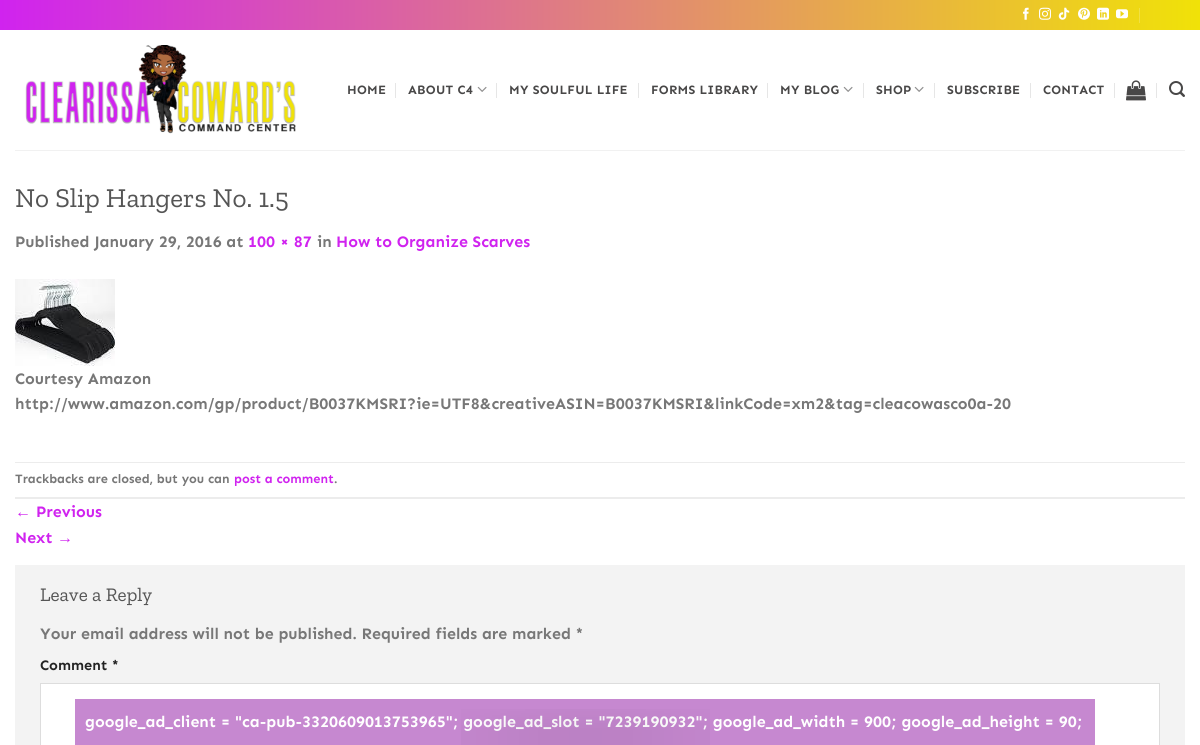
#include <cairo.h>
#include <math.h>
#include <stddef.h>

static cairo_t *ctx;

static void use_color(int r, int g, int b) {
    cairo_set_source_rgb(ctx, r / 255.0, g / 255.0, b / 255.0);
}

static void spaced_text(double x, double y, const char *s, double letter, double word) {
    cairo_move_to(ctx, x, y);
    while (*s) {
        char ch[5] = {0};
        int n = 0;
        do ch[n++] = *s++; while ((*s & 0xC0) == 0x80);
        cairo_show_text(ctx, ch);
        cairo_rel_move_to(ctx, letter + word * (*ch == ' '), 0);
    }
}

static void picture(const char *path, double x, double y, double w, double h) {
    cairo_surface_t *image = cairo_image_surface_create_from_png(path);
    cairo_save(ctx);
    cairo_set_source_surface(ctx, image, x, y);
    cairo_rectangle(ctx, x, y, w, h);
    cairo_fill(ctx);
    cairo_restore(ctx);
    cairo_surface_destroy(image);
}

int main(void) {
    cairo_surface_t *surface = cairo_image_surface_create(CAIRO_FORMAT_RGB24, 1200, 745);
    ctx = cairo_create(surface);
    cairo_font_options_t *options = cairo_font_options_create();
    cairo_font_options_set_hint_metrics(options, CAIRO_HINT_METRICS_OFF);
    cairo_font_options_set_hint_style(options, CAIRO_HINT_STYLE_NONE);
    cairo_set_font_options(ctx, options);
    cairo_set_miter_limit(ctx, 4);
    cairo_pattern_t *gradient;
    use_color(255, 255, 255);
    cairo_paint(ctx);
    gradient = cairo_pattern_create_linear(0, 15, 1200, 15);
    cairo_pattern_add_color_stop_rgba(gradient, 0, 0.816, 0.137, 0.937, 1);
    cairo_pattern_add_color_stop_rgba(gradient, 1, 0.941, 0.886, 0.031, 1);
    cairo_set_source(ctx, gradient);
    cairo_pattern_destroy(gradient);
    cairo_rectangle(ctx, 0, 0, 1200, 30);
    cairo_fill(ctx);
    picture("img1.png", 1023, 7, 6, 13);
    picture("img2.png", 1039, 7, 12, 13);
    picture("img3.png", 1058, 7, 12, 13);
    picture("img4.png", 1078, 7, 12, 13);
    picture("img5.png", 1097, 7, 12, 13);
    picture("img6.png", 1116, 9, 12, 10);
    use_color(241, 224, 67);
    cairo_rectangle(ctx, 1139, 8, 1, 15);
    cairo_fill(ctx);
    picture("img7.png", 25, 45, 271, 89);
    cairo_select_font_face(ctx, "Sen", CAIRO_FONT_SLANT_NORMAL, CAIRO_FONT_WEIGHT_BOLD);
    cairo_set_font_size(ctx, 12.75);
    use_color(72, 71, 71);
    spaced_text(347, 94, "HOME", 0.25, 0);
    use_color(230, 230, 230);
    cairo_rectangle(ctx, 395, 83, 1, 15);
    cairo_fill(ctx);
    use_color(72, 71, 71);
    spaced_text(408, 94, "ABOUT C4", 0.25, 0);
    picture("img8.png", 477, 86, 10, 6);
    use_color(230, 230, 230);
    cairo_rectangle(ctx, 496, 83, 1, 15);
    cairo_fill(ctx);
    use_color(72, 71, 71);
    spaced_text(509, 94, "MY SOULFUL LIFE", 0.25, 0);
    use_color(230, 230, 230);
    cairo_rectangle(ctx, 638, 83, 1, 15);
    cairo_fill(ctx);
    use_color(72, 71, 71);
    spaced_text(651, 94, "FORMS LIBRARY", 0.25, 0);
    use_color(230, 230, 230);
    cairo_rectangle(ctx, 767, 83, 1, 15);
    cairo_fill(ctx);
    use_color(72, 71, 71);
    spaced_text(780, 94, "MY BLOG", 0.25, 0);
    picture("img8.png", 843, 86, 10, 6);
    use_color(230, 230, 230);
    cairo_rectangle(ctx, 863, 83, 1, 15);
    cairo_fill(ctx);
    use_color(72, 71, 71);
    spaced_text(876, 94, "SHOP", 0.25, 0);
    picture("img8.png", 914, 86, 10, 6);
    use_color(230, 230, 230);
    cairo_rectangle(ctx, 934, 83, 1, 15);
    cairo_fill(ctx);
    use_color(72, 71, 71);
    spaced_text(947, 94, "SUBSCRIBE", 0.25, 0);
    use_color(230, 230, 230);
    cairo_rectangle(ctx, 1030, 83, 1, 15);
    cairo_fill(ctx);
    use_color(72, 71, 71);
    spaced_text(1043, 94, "CONTACT", 0.25, 0);
    use_color(230, 230, 230);
    cairo_rectangle(ctx, 1114, 83, 1, 15);
    cairo_fill(ctx);
    picture("img9.png", 1126, 80, 20, 21);
    cairo_rectangle(ctx, 1156, 83, 1, 15);
    cairo_fill(ctx);
    picture("img10.png", 1169, 81, 16, 16);
    use_color(241, 241, 241);
    cairo_rectangle(ctx, 15, 150, 1170, 1);
    cairo_fill(ctx);
    cairo_select_font_face(ctx, "Zilla Slab", CAIRO_FONT_SLANT_NORMAL, CAIRO_FONT_WEIGHT_NORMAL);
    cairo_set_font_size(ctx, 27.25);
    use_color(85, 85, 85);
    cairo_move_to(ctx, 15, 207);
    cairo_show_text(ctx, "No Slip Hangers No. 1.5");
    cairo_select_font_face(ctx, "Sen", CAIRO_FONT_SLANT_NORMAL, CAIRO_FONT_WEIGHT_BOLD);
    cairo_set_font_size(ctx, 16);
    use_color(119, 119, 119);
    cairo_move_to(ctx, 15, 247);
    cairo_show_text(ctx, "Published January 29, 2016 at");
    use_color(208, 35, 239);
    cairo_move_to(ctx, 248, 247);
    cairo_show_text(ctx, "100 × 87");
    use_color(119, 119, 119);
    cairo_move_to(ctx, 317, 247);
    cairo_show_text(ctx, "in");
    use_color(208, 35, 239);
    cairo_move_to(ctx, 336, 247);
    cairo_show_text(ctx, "How to Organize Scarves");
    picture("img11.png", 15, 279, 100, 87);
    use_color(119, 119, 119);
    cairo_move_to(ctx, 15, 384);
    cairo_show_text(ctx, "Courtesy Amazon");
    cairo_move_to(ctx, 15, 409);
    cairo_show_text(ctx, "http://www.amazon.com/gp/product/B0037KMSRI?ie=UTF8&creativeASIN=B0037KMSRI&linkCode=xm2&tag=cleacowasco0a-20");
    use_color(236, 236, 236);
    cairo_rectangle(ctx, 15, 462, 1170, 1);
    cairo_fill(ctx);
    cairo_rectangle(ctx, 15, 497, 1170, 2);
    cairo_fill(ctx);
    cairo_set_font_size(ctx, 12.75);
    use_color(119, 119, 119);
    cairo_move_to(ctx, 15, 483);
    cairo_show_text(ctx, "Trackbacks are closed, but you can");
    use_color(208, 35, 239);
    cairo_move_to(ctx, 234, 483);
    cairo_show_text(ctx, "post a comment");
    use_color(119, 119, 119);
    cairo_move_to(ctx, 334, 483);
    cairo_show_text(ctx, ".");
    cairo_select_font_face(ctx, "Liberation Sans", CAIRO_FONT_SLANT_NORMAL, CAIRO_FONT_WEIGHT_NORMAL);
    cairo_set_font_size(ctx, 16);
    use_color(208, 35, 239);
    cairo_move_to(ctx, 15, 517);
    cairo_show_text(ctx, "←");
    cairo_select_font_face(ctx, "Sen", CAIRO_FONT_SLANT_NORMAL, CAIRO_FONT_WEIGHT_BOLD);
    cairo_move_to(ctx, 36, 517);
    cairo_show_text(ctx, "Previous");
    cairo_move_to(ctx, 15, 543);
    cairo_show_text(ctx, "Next");
    cairo_select_font_face(ctx, "Liberation Sans", CAIRO_FONT_SLANT_NORMAL, CAIRO_FONT_WEIGHT_NORMAL);
    cairo_move_to(ctx, 57, 543);
    cairo_show_text(ctx, "→");
    use_color(243, 243, 243);
    cairo_rectangle(ctx, 15, 565, 1170, 180);
    cairo_fill(ctx);
    cairo_select_font_face(ctx, "Zilla Slab", CAIRO_FONT_SLANT_NORMAL, CAIRO_FONT_WEIGHT_NORMAL);
    cairo_set_font_size(ctx, 19.25);
    use_color(85, 85, 85);
    cairo_move_to(ctx, 40, 601);
    cairo_show_text(ctx, "Leave a Reply");
    cairo_select_font_face(ctx, "Sen", CAIRO_FONT_SLANT_NORMAL, CAIRO_FONT_WEIGHT_BOLD);
    cairo_set_font_size(ctx, 16);
    use_color(119, 119, 119);
    cairo_move_to(ctx, 40, 639);
    cairo_show_text(ctx, "Your email address will not be published. Required fields are marked *");
    cairo_set_font_size(ctx, 14.5);
    use_color(34, 34, 34);
    cairo_move_to(ctx, 40, 670);
    cairo_show_text(ctx, "Comment *");
    use_color(255, 255, 255);
    cairo_rectangle(ctx, 40.5, 683.5, 1119, 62);
    cairo_fill_preserve(ctx);
    use_color(221, 221, 221);
    cairo_set_line_width(ctx, 1);
    cairo_stroke(ctx);
    use_color(198, 136, 208);
    cairo_rectangle(ctx, 75, 699, 1020, 46);
    cairo_fill(ctx);
    cairo_set_font_size(ctx, 16);
    use_color(255, 255, 255);
    cairo_move_to(ctx, 85, 727);
    cairo_show_text(ctx, "google_ad_client = \"ca-pub-3320609013753965\"; google_ad_slot = \"7239190932\"; google_ad_width = 900; google_ad_height = 90;");
    picture("img12.png", 461, 709, 249, 36);
    cairo_surface_write_to_png(surface, "result.png");
    cairo_font_options_destroy(options);
    cairo_destroy(ctx);
    cairo_surface_destroy(surface);
    return 0;
}
